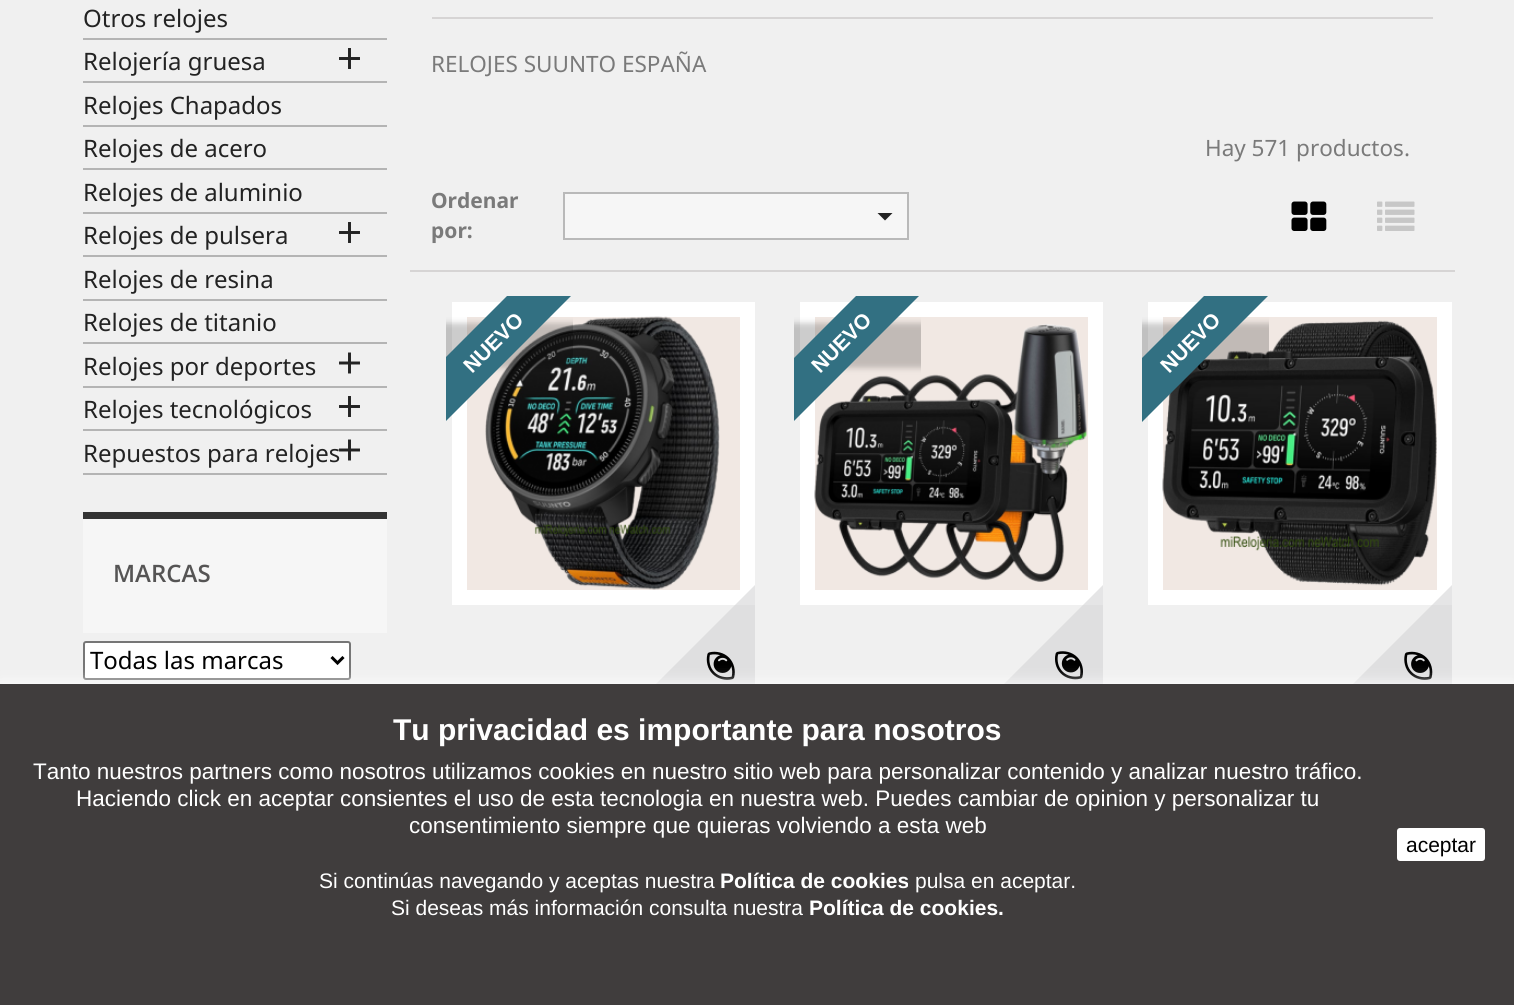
#include <cairo.h>
#include <math.h>
#include <stddef.h>

static cairo_t *ctx;

static void use_color(int r, int g, int b) {
    cairo_set_source_rgb(ctx, r / 255.0, g / 255.0, b / 255.0);
}

static void round_rect(double x, double y, double w, double h, double r) {
    cairo_new_sub_path(ctx);
    cairo_arc(ctx, x + w - r, y + h - r, r, 0, M_PI / 2);
    cairo_arc(ctx, x + r, y + h - r, r, M_PI / 2, M_PI);
    cairo_arc(ctx, x + r, y + r, r, M_PI, 1.5 * M_PI);
    cairo_arc(ctx, x + w - r, y + r, r, 1.5 * M_PI, 2 * M_PI);
    cairo_close_path(ctx);
}

static void shadow(double x, double y, double w, double h, double r, double blur, double alpha) {
    cairo_push_group_with_content(ctx, CAIRO_CONTENT_ALPHA);
    cairo_set_operator(ctx, CAIRO_OPERATOR_SOURCE);
    for (int i = 15; i >= -15 && fmin(w, h) + blur * i / 3 > 0; i -= 2) {
        double e = blur * i / 6;
        cairo_set_source_rgba(ctx, 0, 0, 0, alpha * erfc((i - 1) / 8.5) / 2);
        round_rect(x - e, y - e, w + 2 * e, h + 2 * e, fmax(0, fmin(r + e + blur * .6, fmin(w, h) / 2 + e)));
        cairo_fill(ctx);
    }
    cairo_pattern_t *soft = cairo_pop_group(ctx);
    cairo_mask(ctx, soft);
    cairo_pattern_destroy(soft);
}

static void picture(const char *path, double x, double y, double w, double h) {
    cairo_surface_t *image = cairo_image_surface_create_from_png(path);
    cairo_save(ctx);
    cairo_set_source_surface(ctx, image, x, y);
    cairo_rectangle(ctx, x, y, w, h);
    cairo_fill(ctx);
    cairo_restore(ctx);
    cairo_surface_destroy(image);
}

int main(void) {
    cairo_surface_t *surface = cairo_image_surface_create(CAIRO_FORMAT_RGB24, 1514, 1005);
    ctx = cairo_create(surface);
    cairo_font_options_t *options = cairo_font_options_create();
    cairo_font_options_set_hint_metrics(options, CAIRO_HINT_METRICS_OFF);
    cairo_font_options_set_hint_style(options, CAIRO_HINT_STYLE_NONE);
    cairo_set_font_options(ctx, options);
    cairo_set_miter_limit(ctx, 4);
    use_color(240, 240, 240);
    cairo_paint(ctx);
    use_color(180, 180, 180);
    cairo_rectangle(ctx, 83, 38, 304, 2);
    cairo_fill(ctx);
    cairo_select_font_face(ctx, "Noto Sans", CAIRO_FONT_SLANT_NORMAL, CAIRO_FONT_WEIGHT_NORMAL);
    cairo_set_font_size(ctx, 24);
    use_color(35, 35, 35);
    cairo_move_to(ctx, 83, 27);
    cairo_show_text(ctx, "Otros relojes");
    use_color(180, 180, 180);
    cairo_rectangle(ctx, 83, 81, 304, 2);
    cairo_fill(ctx);
    use_color(35, 35, 35);
    cairo_move_to(ctx, 83, 70);
    cairo_show_text(ctx, "Relojería gruesa");
    picture("img1.png", 339, 48, 21, 21);
    use_color(180, 180, 180);
    cairo_rectangle(ctx, 83, 125, 304, 2);
    cairo_fill(ctx);
    use_color(35, 35, 35);
    cairo_move_to(ctx, 83, 114);
    cairo_show_text(ctx, "Relojes Chapados");
    use_color(180, 180, 180);
    cairo_rectangle(ctx, 83, 168, 304, 2);
    cairo_fill(ctx);
    use_color(35, 35, 35);
    cairo_move_to(ctx, 83, 157);
    cairo_show_text(ctx, "Relojes de acero");
    use_color(180, 180, 180);
    cairo_rectangle(ctx, 83, 212, 304, 2);
    cairo_fill(ctx);
    use_color(35, 35, 35);
    cairo_move_to(ctx, 83, 201);
    cairo_show_text(ctx, "Relojes de aluminio");
    use_color(180, 180, 180);
    cairo_rectangle(ctx, 83, 255, 304, 2);
    cairo_fill(ctx);
    use_color(35, 35, 35);
    cairo_move_to(ctx, 83, 244);
    cairo_show_text(ctx, "Relojes de pulsera");
    picture("img1.png", 339, 222, 21, 21);
    use_color(180, 180, 180);
    cairo_rectangle(ctx, 83, 299, 304, 2);
    cairo_fill(ctx);
    use_color(35, 35, 35);
    cairo_move_to(ctx, 83, 288);
    cairo_show_text(ctx, "Relojes de resina");
    use_color(180, 180, 180);
    cairo_rectangle(ctx, 83, 342, 304, 2);
    cairo_fill(ctx);
    use_color(35, 35, 35);
    cairo_move_to(ctx, 83, 331);
    cairo_show_text(ctx, "Relojes de titanio");
    use_color(180, 180, 180);
    cairo_rectangle(ctx, 83, 386, 304, 2);
    cairo_fill(ctx);
    use_color(35, 35, 35);
    cairo_move_to(ctx, 83, 375);
    cairo_show_text(ctx, "Relojes por deportes");
    picture("img2.png", 339, 352, 21, 22);
    use_color(180, 180, 180);
    cairo_rectangle(ctx, 83, 429, 304, 2);
    cairo_fill(ctx);
    use_color(35, 35, 35);
    cairo_move_to(ctx, 83, 418);
    cairo_show_text(ctx, "Relojes tecnológicos");
    picture("img1.png", 339, 396, 21, 21);
    use_color(180, 180, 180);
    cairo_rectangle(ctx, 83, 473, 304, 2);
    cairo_fill(ctx);
    use_color(35, 35, 35);
    cairo_move_to(ctx, 83, 462);
    cairo_show_text(ctx, "Repuestos para relojes");
    picture("img2.png", 339, 439, 21, 22);
    use_color(51, 51, 51);
    cairo_rectangle(ctx, 83, 512, 304, 7);
    cairo_fill(ctx);
    use_color(246, 246, 246);
    cairo_rectangle(ctx, 83, 519, 304, 114);
    cairo_fill(ctx);
    cairo_select_font_face(ctx, "Open Sans SemiBold", CAIRO_FONT_SLANT_NORMAL, CAIRO_FONT_WEIGHT_NORMAL);
    use_color(85, 84, 84);
    cairo_move_to(ctx, 113, 582);
    cairo_show_text(ctx, "MARCAS");
    use_color(255, 255, 255);
    round_rect(84, 642, 266, 37, 2);
    cairo_fill_preserve(ctx);
    use_color(118, 118, 118);
    cairo_stroke(ctx);
    cairo_new_path(ctx);
    cairo_move_to(ctx, 331.5, 657);
    cairo_line_to(ctx, 337.5, 663);
    cairo_line_to(ctx, 343.5, 657);
    use_color(0, 0, 0);
    cairo_set_line_width(ctx, 3);
    cairo_stroke(ctx);
    cairo_select_font_face(ctx, "Noto Sans", CAIRO_FONT_SLANT_NORMAL, CAIRO_FONT_WEIGHT_NORMAL);
    cairo_move_to(ctx, 90, 669);
    cairo_show_text(ctx, "Todas las marcas");
    use_color(214, 212, 212);
    cairo_rectangle(ctx, 432, 17, 1001, 2);
    cairo_fill(ctx);
    cairo_set_font_size(ctx, 22.5);
    use_color(122, 122, 122);
    cairo_move_to(ctx, 431, 72);
    cairo_show_text(ctx, "RELOJES SUUNTO ESPAÑA");
    cairo_move_to(ctx, 1205, 156);
    cairo_show_text(ctx, "Hay 571 productos.");
    use_color(214, 212, 212);
    cairo_rectangle(ctx, 410, 270, 1045, 2);
    cairo_fill(ctx);
    cairo_select_font_face(ctx, "Noto Sans", CAIRO_FONT_SLANT_NORMAL, CAIRO_FONT_WEIGHT_BOLD);
    cairo_set_font_size(ctx, 21);
    use_color(122, 122, 122);
    cairo_move_to(ctx, 431, 208);
    cairo_show_text(ctx, "Ordenar");
    cairo_move_to(ctx, 431, 238);
    cairo_show_text(ctx, "por:");
    use_color(246, 246, 246);
    cairo_rectangle(ctx, 564, 193, 344, 46);
    cairo_fill_preserve(ctx);
    use_color(185, 185, 185);
    cairo_set_line_width(ctx, 2);
    cairo_stroke(ctx);
    use_color(35, 35, 35);
    cairo_new_path(ctx);
    cairo_move_to(ctx, 877.5, 213);
    cairo_line_to(ctx, 892.5, 213);
    cairo_line_to(ctx, 885, 220.5);
    cairo_close_path(ctx);
    cairo_fill(ctx);
    picture("img3.png", 1291, 201, 36, 30);
    picture("img4.png", 1377, 201, 38, 30);
    use_color(241, 232, 227);
    cairo_rectangle(ctx, 459.5, 309.5, 288, 288);
    cairo_fill_preserve(ctx);
    use_color(255, 255, 255);
    cairo_set_line_width(ctx, 15);
    cairo_stroke(ctx);
    picture("img5.png", 485, 316, 235, 274);
    cairo_save(ctx);
    cairo_rectangle(ctx, 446, 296, 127, 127);
    cairo_clip(ctx);
    use_color(0, 0, 0);
    shadow(399, 323, 195, 45, 0, 3, 0.2);
    cairo_restore(ctx);
    cairo_save(ctx);
    cairo_rectangle(ctx, 446, 296, 127, 127);
    cairo_clip(ctx);
    use_color(50, 112, 130);
    cairo_new_path(ctx);
    cairo_move_to(ctx, 408, 395);
    cairo_line_to(ctx, 546, 257);
    cairo_line_to(ctx, 578, 289);
    cairo_line_to(ctx, 440, 427);
    cairo_close_path(ctx);
    cairo_fill(ctx);
    cairo_restore(ctx);
    cairo_select_font_face(ctx, "Liberation Sans", CAIRO_FONT_SLANT_NORMAL, CAIRO_FONT_WEIGHT_BOLD);
    cairo_save(ctx);
    cairo_translate(ctx, 472, 374);
    cairo_rotate(ctx, -45 * M_PI / 180);
    cairo_move_to(ctx, 0, 0);
    cairo_show_text(ctx, "NUEVO");
    cairo_restore(ctx);
    cairo_save(ctx);
    cairo_rectangle(ctx, 432, 474, 323, 233);
    cairo_clip(ctx);
    cairo_set_source_rgba(ctx, 0.816, 0.816, 0.827, 0.57);
    cairo_new_path(ctx);
    cairo_move_to(ctx, 763, 577);
    cairo_line_to(ctx, 853, 667);
    cairo_line_to(ctx, 715, 805);
    cairo_line_to(ctx, 625, 715);
    cairo_close_path(ctx);
    cairo_fill(ctx);
    cairo_restore(ctx);
    picture("img6.png", 706, 651, 29, 29);
    use_color(241, 232, 227);
    cairo_rectangle(ctx, 807.5, 309.5, 288, 288);
    cairo_fill_preserve(ctx);
    use_color(255, 255, 255);
    cairo_stroke(ctx);
    picture("img7.png", 814, 324, 273, 258);
    cairo_save(ctx);
    cairo_rectangle(ctx, 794, 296, 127, 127);
    cairo_clip(ctx);
    use_color(0, 0, 0);
    shadow(747, 323, 195, 45, 0, 3, 0.2);
    cairo_restore(ctx);
    cairo_save(ctx);
    cairo_rectangle(ctx, 794, 296, 127, 127);
    cairo_clip(ctx);
    use_color(50, 112, 130);
    cairo_new_path(ctx);
    cairo_move_to(ctx, 757, 395);
    cairo_line_to(ctx, 895, 257);
    cairo_line_to(ctx, 926, 289);
    cairo_line_to(ctx, 788, 427);
    cairo_close_path(ctx);
    cairo_fill(ctx);
    cairo_restore(ctx);
    cairo_save(ctx);
    cairo_translate(ctx, 820, 374);
    cairo_rotate(ctx, -45 * M_PI / 180);
    cairo_move_to(ctx, 0, 0);
    cairo_show_text(ctx, "NUEVO");
    cairo_restore(ctx);
    cairo_save(ctx);
    cairo_rectangle(ctx, 780, 474, 323, 233);
    cairo_clip(ctx);
    cairo_set_source_rgba(ctx, 0.816, 0.816, 0.827, 0.57);
    cairo_new_path(ctx);
    cairo_move_to(ctx, 1111, 577);
    cairo_line_to(ctx, 1201, 667);
    cairo_line_to(ctx, 1064, 805);
    cairo_line_to(ctx, 973, 715);
    cairo_close_path(ctx);
    cairo_fill(ctx);
    cairo_restore(ctx);
    picture("img8.png", 1055, 651, 28, 29);
    use_color(241, 232, 227);
    cairo_rectangle(ctx, 1155.5, 309.5, 289, 288);
    cairo_fill_preserve(ctx);
    use_color(255, 255, 255);
    cairo_stroke(ctx);
    picture("img9.png", 1162, 320, 275, 266);
    cairo_save(ctx);
    cairo_rectangle(ctx, 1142, 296, 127, 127);
    cairo_clip(ctx);
    use_color(0, 0, 0);
    shadow(1095, 323, 195, 45, 0, 3, 0.2);
    cairo_restore(ctx);
    cairo_save(ctx);
    cairo_rectangle(ctx, 1142, 296, 127, 127);
    cairo_clip(ctx);
    use_color(50, 112, 130);
    cairo_new_path(ctx);
    cairo_move_to(ctx, 1105, 395);
    cairo_line_to(ctx, 1243, 257);
    cairo_line_to(ctx, 1275, 289);
    cairo_line_to(ctx, 1137, 427);
    cairo_close_path(ctx);
    cairo_fill(ctx);
    cairo_restore(ctx);
    cairo_save(ctx);
    cairo_translate(ctx, 1169, 374);
    cairo_rotate(ctx, -45 * M_PI / 180);
    cairo_move_to(ctx, 0, 0);
    cairo_show_text(ctx, "NUEVO");
    cairo_restore(ctx);
    cairo_save(ctx);
    cairo_rectangle(ctx, 1130, 474, 322, 233);
    cairo_clip(ctx);
    cairo_set_source_rgba(ctx, 0.816, 0.816, 0.827, 0.57);
    cairo_new_path(ctx);
    cairo_move_to(ctx, 1460, 577);
    cairo_line_to(ctx, 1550, 667);
    cairo_line_to(ctx, 1412, 805);
    cairo_line_to(ctx, 1322, 715);
    cairo_close_path(ctx);
    cairo_fill(ctx);
    cairo_restore(ctx);
    picture("img10.png", 1404, 651, 29, 29);
    use_color(255, 255, 255);
    shadow(0, 684, 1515, 321, 0, 7.5, 1);
    use_color(64, 61, 61);
    cairo_rectangle(ctx, 0, 684, 1514, 321);
    cairo_fill(ctx);
    cairo_set_font_size(ctx, 30);
    use_color(255, 255, 255);
    cairo_move_to(ctx, 393, 740);
    cairo_show_text(ctx, "Tu privacidad es importante para nosotros");
    cairo_select_font_face(ctx, "Liberation Sans", CAIRO_FONT_SLANT_NORMAL, CAIRO_FONT_WEIGHT_NORMAL);
    cairo_set_font_size(ctx, 22.5);
    cairo_move_to(ctx, 33, 779);
    cairo_show_text(ctx, "Tanto nuestros partners como nosotros utilizamos cookies en nuestro sitio web para personalizar contenido y analizar nuestro tráfico.");
    cairo_move_to(ctx, 76, 806);
    cairo_show_text(ctx, "Haciendo click en aceptar consientes el uso de esta tecnologia en nuestra web. Puedes cambiar de opinion y personalizar tu");
    cairo_move_to(ctx, 409, 833);
    cairo_show_text(ctx, "consentimiento siempre que quieras volviendo a esta web");
    cairo_set_font_size(ctx, 21);
    cairo_move_to(ctx, 319, 888);
    cairo_show_text(ctx, "Si continúas navegando y aceptas nuestra");
    cairo_select_font_face(ctx, "Liberation Sans", CAIRO_FONT_SLANT_NORMAL, CAIRO_FONT_WEIGHT_BOLD);
    cairo_move_to(ctx, 720, 888);
    cairo_show_text(ctx, "Política de cookies");
    cairo_select_font_face(ctx, "Liberation Sans", CAIRO_FONT_SLANT_NORMAL, CAIRO_FONT_WEIGHT_NORMAL);
    cairo_move_to(ctx, 915, 888);
    cairo_show_text(ctx, "pulsa en aceptar.");
    cairo_move_to(ctx, 391, 915);
    cairo_show_text(ctx, "Si deseas más información consulta nuestra");
    cairo_select_font_face(ctx, "Liberation Sans", CAIRO_FONT_SLANT_NORMAL, CAIRO_FONT_WEIGHT_BOLD);
    cairo_move_to(ctx, 809, 915);
    cairo_show_text(ctx, "Política de cookies.");
    round_rect(1397, 828, 88, 33, 3);
    cairo_fill(ctx);
    cairo_select_font_face(ctx, "Liberation Sans", CAIRO_FONT_SLANT_NORMAL, CAIRO_FONT_WEIGHT_NORMAL);
    use_color(0, 0, 0);
    cairo_move_to(ctx, 1406, 852);
    cairo_show_text(ctx, "aceptar");
    cairo_surface_write_to_png(surface, "result.png");
    cairo_font_options_destroy(options);
    cairo_destroy(ctx);
    cairo_surface_destroy(surface);
    return 0;
}
